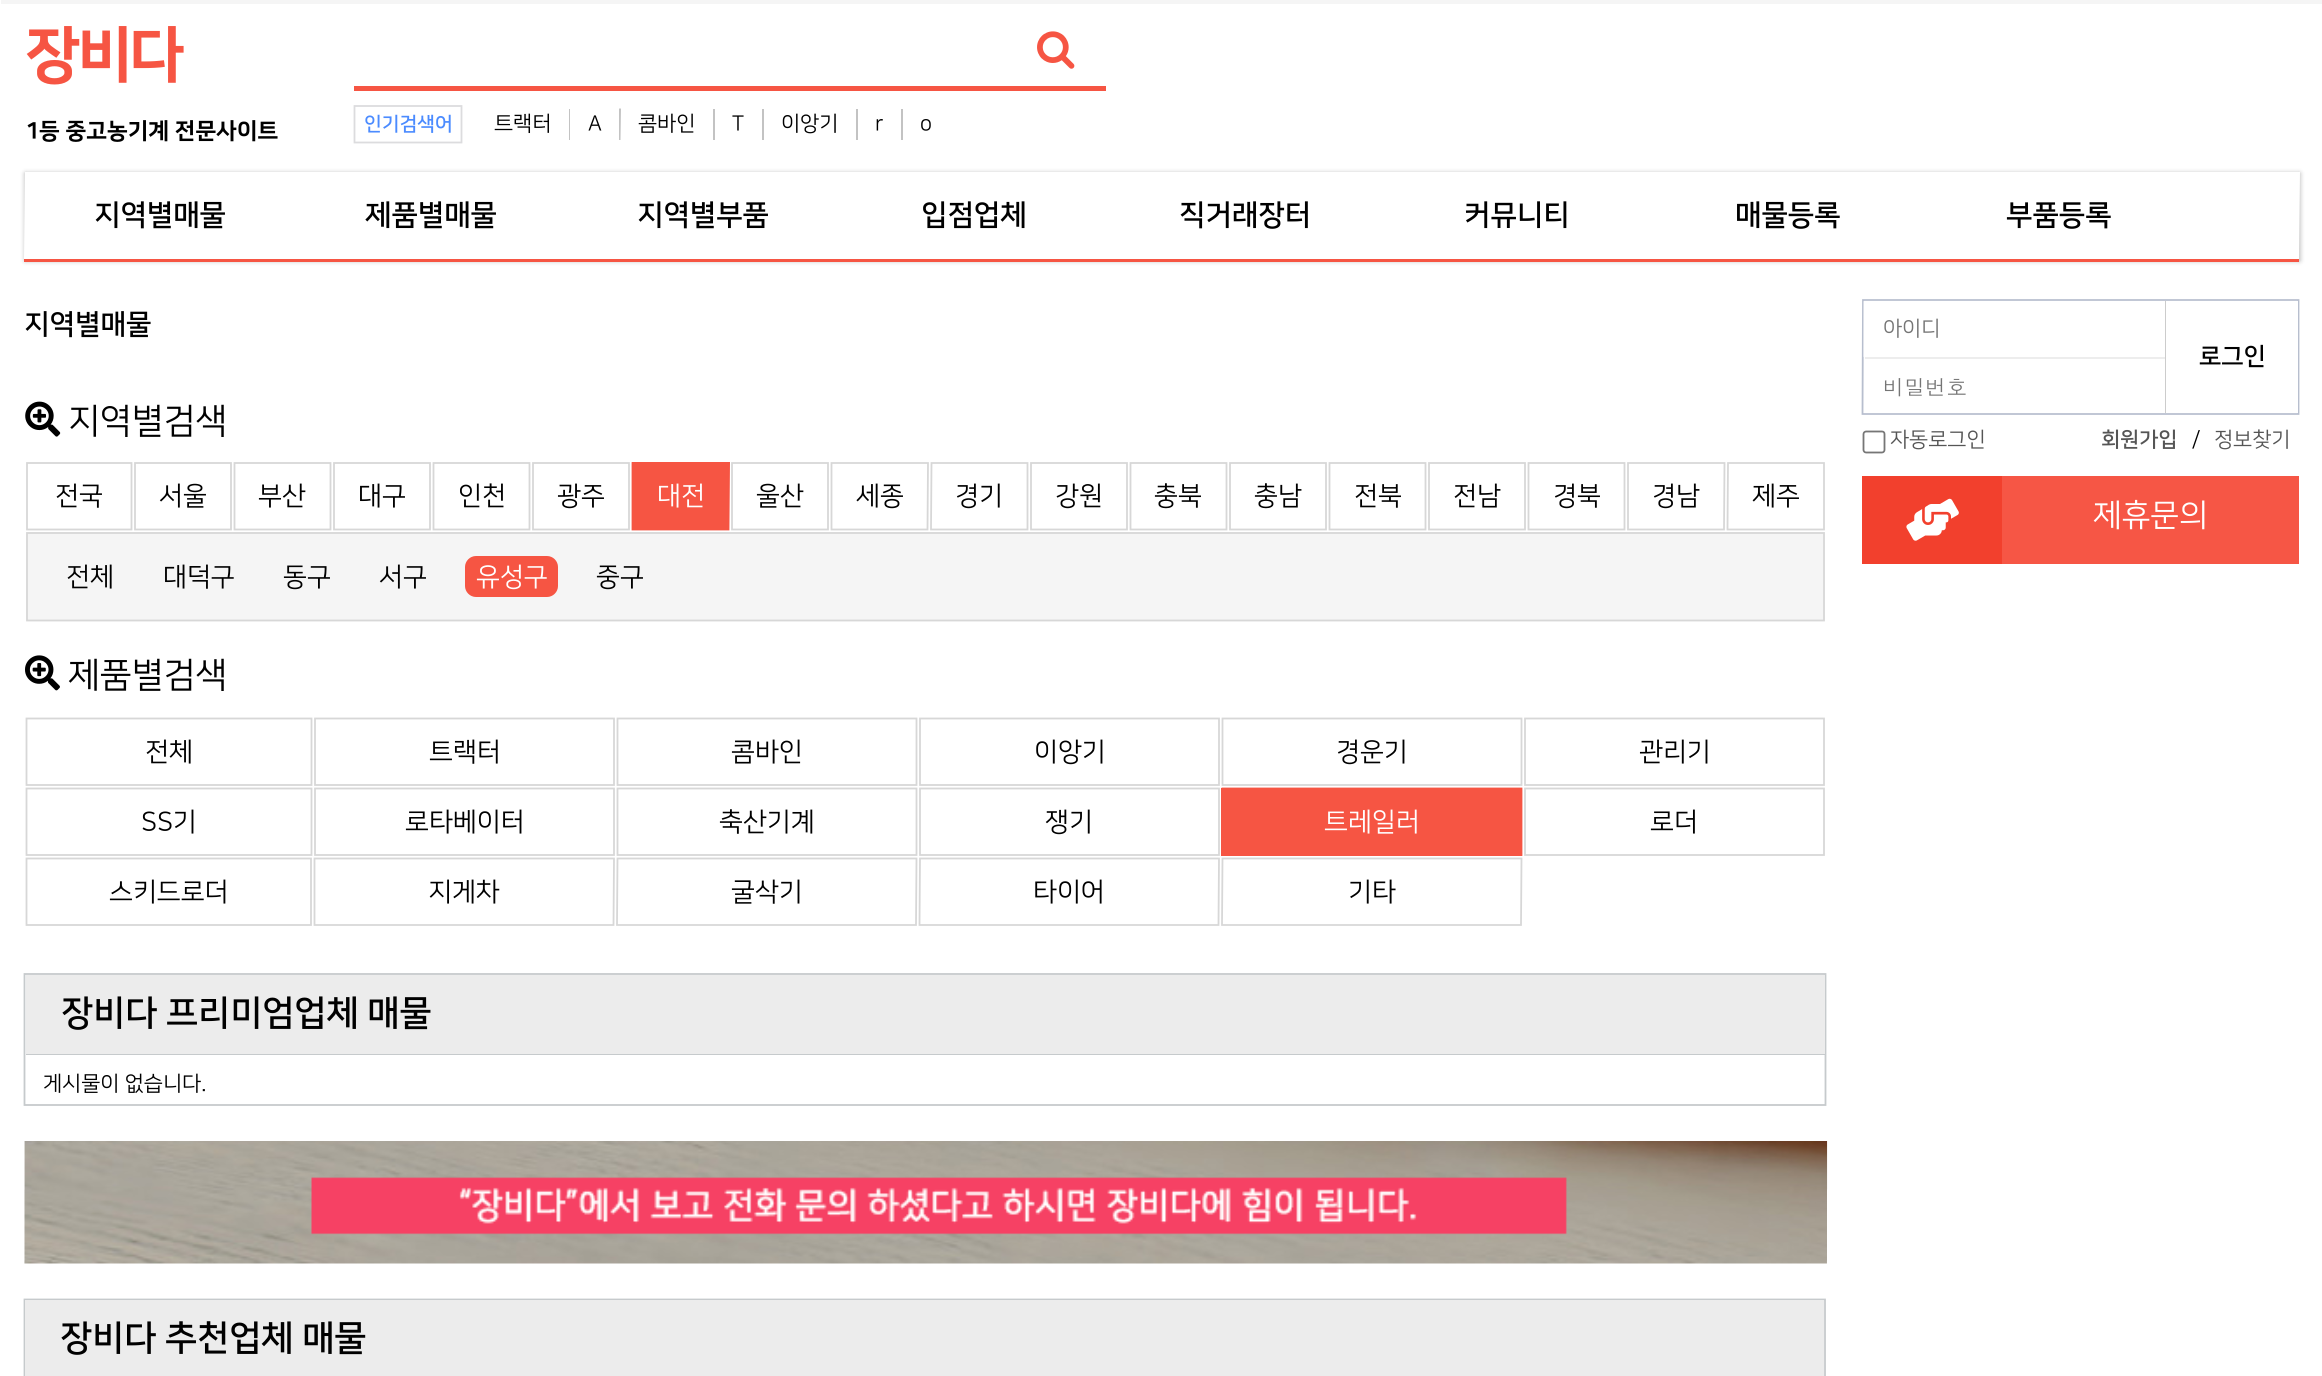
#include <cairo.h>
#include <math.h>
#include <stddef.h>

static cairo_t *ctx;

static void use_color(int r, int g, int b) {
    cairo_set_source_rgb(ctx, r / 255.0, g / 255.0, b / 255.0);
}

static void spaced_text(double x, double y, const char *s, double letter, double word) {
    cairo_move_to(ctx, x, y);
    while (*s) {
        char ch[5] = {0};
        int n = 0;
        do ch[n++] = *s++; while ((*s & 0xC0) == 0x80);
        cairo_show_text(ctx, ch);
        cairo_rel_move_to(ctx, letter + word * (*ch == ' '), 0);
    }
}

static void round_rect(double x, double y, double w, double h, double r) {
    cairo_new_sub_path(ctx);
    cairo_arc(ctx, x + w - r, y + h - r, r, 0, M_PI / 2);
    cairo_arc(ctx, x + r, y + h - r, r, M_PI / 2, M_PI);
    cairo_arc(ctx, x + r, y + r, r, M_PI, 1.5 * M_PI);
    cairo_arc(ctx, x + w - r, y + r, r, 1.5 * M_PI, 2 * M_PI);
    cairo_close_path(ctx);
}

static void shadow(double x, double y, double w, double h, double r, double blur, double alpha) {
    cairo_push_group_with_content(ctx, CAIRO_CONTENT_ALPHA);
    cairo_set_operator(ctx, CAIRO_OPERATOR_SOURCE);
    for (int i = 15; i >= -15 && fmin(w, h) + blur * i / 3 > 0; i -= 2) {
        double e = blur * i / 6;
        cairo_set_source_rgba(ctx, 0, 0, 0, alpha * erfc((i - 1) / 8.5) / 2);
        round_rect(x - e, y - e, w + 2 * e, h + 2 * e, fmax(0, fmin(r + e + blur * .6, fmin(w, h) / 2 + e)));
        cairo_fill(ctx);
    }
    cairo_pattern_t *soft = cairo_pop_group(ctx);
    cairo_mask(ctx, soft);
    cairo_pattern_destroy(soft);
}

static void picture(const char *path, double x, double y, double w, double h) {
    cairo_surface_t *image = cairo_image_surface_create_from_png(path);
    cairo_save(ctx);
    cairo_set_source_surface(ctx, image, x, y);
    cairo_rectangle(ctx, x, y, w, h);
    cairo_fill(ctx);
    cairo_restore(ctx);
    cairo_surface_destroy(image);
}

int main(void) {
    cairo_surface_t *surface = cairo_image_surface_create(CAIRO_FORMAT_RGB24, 2322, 1376);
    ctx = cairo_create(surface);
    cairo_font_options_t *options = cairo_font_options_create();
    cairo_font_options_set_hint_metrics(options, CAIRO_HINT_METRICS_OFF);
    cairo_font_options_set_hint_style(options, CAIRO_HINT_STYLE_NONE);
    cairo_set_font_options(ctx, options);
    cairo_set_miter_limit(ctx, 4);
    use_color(255, 255, 255);
    cairo_paint(ctx);
    use_color(245, 245, 245);
    cairo_rectangle(ctx, 1, 0, 2321, 4);
    cairo_fill(ctx);
    cairo_select_font_face(ctx, "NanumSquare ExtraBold", CAIRO_FONT_SLANT_NORMAL, CAIRO_FONT_WEIGHT_NORMAL);
    cairo_set_font_size(ctx, 61);
    use_color(246, 85, 67);
    spaced_text(25, 74, "장비다", -3.5, 0);
    cairo_set_font_size(ctx, 22.75);
    use_color(0, 0, 0);
    cairo_move_to(ctx, 25, 138);
    cairo_show_text(ctx, "1등 중고농기계 전문사이트");
    use_color(246, 85, 67);
    cairo_rectangle(ctx, 354, 86, 752, 5);
    cairo_fill(ctx);
    picture("img1.png", 1037, 31, 38, 38);
    cairo_new_path(ctx);
    cairo_move_to(ctx, 354.5, 106);
    cairo_line_to(ctx, 461.5, 106);
    cairo_line_to(ctx, 461.5, 142.5);
    cairo_line_to(ctx, 354.5, 142.5);
    cairo_close_path(ctx);
    use_color(220, 220, 222);
    cairo_set_line_width(ctx, 1.8);
    cairo_stroke(ctx);
    cairo_select_font_face(ctx, "NanumSquare", CAIRO_FONT_SLANT_NORMAL, CAIRO_FONT_WEIGHT_BOLD);
    cairo_set_font_size(ctx, 19.5);
    use_color(75, 139, 255);
    cairo_move_to(ctx, 364, 130);
    cairo_show_text(ctx, "인기검색어");
    cairo_select_font_face(ctx, "NanumSquare", CAIRO_FONT_SLANT_NORMAL, CAIRO_FONT_WEIGHT_NORMAL);
    cairo_set_font_size(ctx, 21);
    use_color(0, 0, 0);
    cairo_move_to(ctx, 494, 130);
    cairo_show_text(ctx, "트랙터");
    use_color(195, 195, 195);
    cairo_rectangle(ctx, 569, 109, 1, 31);
    cairo_fill(ctx);
    use_color(0, 0, 0);
    cairo_move_to(ctx, 588, 130);
    cairo_show_text(ctx, "A");
    use_color(195, 195, 195);
    cairo_new_path(ctx);
    cairo_move_to(ctx, 619, 108.5);
    cairo_line_to(ctx, 621, 108.5);
    cairo_line_to(ctx, 620.5, 140);
    cairo_line_to(ctx, 619, 140);
    cairo_close_path(ctx);
    cairo_fill(ctx);
    use_color(0, 0, 0);
    cairo_move_to(ctx, 638, 130);
    cairo_show_text(ctx, "콤바인");
    use_color(195, 195, 195);
    cairo_rectangle(ctx, 713, 109, 2, 31);
    cairo_fill(ctx);
    use_color(0, 0, 0);
    cairo_move_to(ctx, 732, 130);
    cairo_show_text(ctx, "T");
    use_color(195, 195, 195);
    cairo_rectangle(ctx, 762, 109, 2, 31);
    cairo_fill(ctx);
    use_color(0, 0, 0);
    cairo_move_to(ctx, 781, 130);
    cairo_show_text(ctx, "이앙기");
    use_color(195, 195, 195);
    cairo_rectangle(ctx, 856, 109, 2, 31);
    cairo_fill(ctx);
    use_color(0, 0, 0);
    cairo_move_to(ctx, 875, 130);
    cairo_show_text(ctx, "r");
    use_color(195, 195, 195);
    cairo_rectangle(ctx, 901, 109, 2, 31);
    cairo_fill(ctx);
    use_color(0, 0, 0);
    cairo_move_to(ctx, 920, 130);
    cairo_show_text(ctx, "o");
    use_color(0, 0, 0);
    shadow(25, 173, 2275, 88, 0, 2.5, 0.3);
    use_color(255, 255, 255);
    cairo_new_path(ctx);
    cairo_move_to(ctx, 25, 172);
    cairo_line_to(ctx, 2300, 172);
    cairo_line_to(ctx, 2299, 259);
    cairo_line_to(ctx, 24, 259);
    cairo_close_path(ctx);
    cairo_fill(ctx);
    cairo_select_font_face(ctx, "NanumSquare", CAIRO_FONT_SLANT_NORMAL, CAIRO_FONT_WEIGHT_BOLD);
    cairo_set_font_size(ctx, 29);
    use_color(0, 0, 0);
    cairo_move_to(ctx, 94, 224);
    cairo_show_text(ctx, "지역별매물");
    cairo_move_to(ctx, 365, 224);
    cairo_show_text(ctx, "제품별매물");
    cairo_move_to(ctx, 637, 224);
    cairo_show_text(ctx, "지역별부품");
    cairo_move_to(ctx, 921, 224);
    cairo_show_text(ctx, "입점업체");
    cairo_move_to(ctx, 1179, 224);
    cairo_show_text(ctx, "직거래장터");
    cairo_move_to(ctx, 1464, 224);
    cairo_show_text(ctx, "커뮤니티");
    cairo_move_to(ctx, 1735, 224);
    cairo_show_text(ctx, "매물등록");
    cairo_move_to(ctx, 2006, 224);
    cairo_show_text(ctx, "부품등록");
    use_color(246, 85, 67);
    cairo_rectangle(ctx, 24, 259, 2275, 3);
    cairo_fill(ctx);
    cairo_set_font_size(ctx, 28);
    use_color(0, 0, 0);
    cairo_move_to(ctx, 24, 333);
    cairo_show_text(ctx, "지역별매물");
    picture("img2.png", 25, 401, 36, 36);
    cairo_select_font_face(ctx, "NanumSquare", CAIRO_FONT_SLANT_NORMAL, CAIRO_FONT_WEIGHT_NORMAL);
    cairo_set_font_size(ctx, 35);
    cairo_move_to(ctx, 68, 432);
    cairo_show_text(ctx, "지역별검색");
    cairo_new_path(ctx);
    cairo_move_to(ctx, 27, 463);
    cairo_line_to(ctx, 131.5, 463);
    cairo_line_to(ctx, 131.5, 529.5);
    cairo_line_to(ctx, 27, 529.5);
    cairo_close_path(ctx);
    use_color(215, 215, 215);
    cairo_stroke(ctx);
    cairo_set_font_size(ctx, 26.25);
    use_color(0, 0, 0);
    cairo_move_to(ctx, 55, 504);
    cairo_show_text(ctx, "전국");
    cairo_new_path(ctx);
    cairo_move_to(ctx, 135, 463);
    cairo_line_to(ctx, 231, 463);
    cairo_line_to(ctx, 231, 529.5);
    cairo_line_to(ctx, 135, 529.5);
    cairo_close_path(ctx);
    use_color(215, 215, 215);
    cairo_stroke(ctx);
    use_color(0, 0, 0);
    cairo_move_to(ctx, 159, 504);
    cairo_show_text(ctx, "서울");
    cairo_new_path(ctx);
    cairo_move_to(ctx, 234.5, 463);
    cairo_line_to(ctx, 330.5, 463);
    cairo_line_to(ctx, 330.5, 529.5);
    cairo_line_to(ctx, 234.5, 529.5);
    cairo_close_path(ctx);
    use_color(215, 215, 215);
    cairo_stroke(ctx);
    use_color(0, 0, 0);
    cairo_move_to(ctx, 258, 504);
    cairo_show_text(ctx, "부산");
    cairo_new_path(ctx);
    cairo_move_to(ctx, 334, 463);
    cairo_line_to(ctx, 430, 463);
    cairo_line_to(ctx, 430, 529.5);
    cairo_line_to(ctx, 334, 529.5);
    cairo_close_path(ctx);
    use_color(215, 215, 215);
    cairo_stroke(ctx);
    use_color(0, 0, 0);
    cairo_move_to(ctx, 358, 504);
    cairo_show_text(ctx, "대구");
    cairo_new_path(ctx);
    cairo_move_to(ctx, 433.5, 463);
    cairo_line_to(ctx, 529.5, 463);
    cairo_line_to(ctx, 529.5, 529.5);
    cairo_line_to(ctx, 433.5, 529.5);
    cairo_close_path(ctx);
    use_color(215, 215, 215);
    cairo_stroke(ctx);
    use_color(0, 0, 0);
    cairo_move_to(ctx, 458, 504);
    cairo_show_text(ctx, "인천");
    cairo_new_path(ctx);
    cairo_move_to(ctx, 533, 463);
    cairo_line_to(ctx, 629, 463);
    cairo_line_to(ctx, 629, 529.5);
    cairo_line_to(ctx, 533, 529.5);
    cairo_close_path(ctx);
    use_color(215, 215, 215);
    cairo_stroke(ctx);
    use_color(0, 0, 0);
    cairo_move_to(ctx, 557, 504);
    cairo_show_text(ctx, "광주");
    use_color(246, 85, 67);
    cairo_new_path(ctx);
    cairo_move_to(ctx, 632, 462);
    cairo_line_to(ctx, 730, 462);
    cairo_line_to(ctx, 729, 530);
    cairo_line_to(ctx, 632, 530);
    cairo_close_path(ctx);
    cairo_fill(ctx);
    cairo_new_path(ctx);
    cairo_move_to(ctx, 632.5, 463);
    cairo_line_to(ctx, 728.5, 463);
    cairo_line_to(ctx, 728.5, 529.5);
    cairo_line_to(ctx, 632.5, 529.5);
    cairo_close_path(ctx);
    cairo_stroke(ctx);
    use_color(255, 255, 255);
    cairo_move_to(ctx, 657, 504);
    cairo_show_text(ctx, "대전");
    cairo_new_path(ctx);
    cairo_move_to(ctx, 732, 463);
    cairo_line_to(ctx, 828, 463);
    cairo_line_to(ctx, 828, 529.5);
    cairo_line_to(ctx, 732, 529.5);
    cairo_close_path(ctx);
    use_color(215, 215, 215);
    cairo_stroke(ctx);
    use_color(0, 0, 0);
    cairo_move_to(ctx, 756, 504);
    cairo_show_text(ctx, "울산");
    cairo_new_path(ctx);
    cairo_move_to(ctx, 831.5, 463);
    cairo_line_to(ctx, 928, 463);
    cairo_line_to(ctx, 927.5, 529.5);
    cairo_line_to(ctx, 831.5, 529.5);
    cairo_close_path(ctx);
    use_color(215, 215, 215);
    cairo_stroke(ctx);
    use_color(0, 0, 0);
    cairo_move_to(ctx, 856, 504);
    cairo_show_text(ctx, "세종");
    cairo_new_path(ctx);
    cairo_move_to(ctx, 931.5, 463);
    cairo_line_to(ctx, 1027.5, 463);
    cairo_line_to(ctx, 1027.5, 529.5);
    cairo_line_to(ctx, 931, 529.5);
    cairo_close_path(ctx);
    use_color(215, 215, 215);
    cairo_stroke(ctx);
    use_color(0, 0, 0);
    cairo_move_to(ctx, 955, 504);
    cairo_show_text(ctx, "경기");
    cairo_new_path(ctx);
    cairo_move_to(ctx, 1031, 463);
    cairo_line_to(ctx, 1127, 463);
    cairo_line_to(ctx, 1127, 529.5);
    cairo_line_to(ctx, 1031, 529.5);
    cairo_close_path(ctx);
    use_color(215, 215, 215);
    cairo_stroke(ctx);
    use_color(0, 0, 0);
    cairo_move_to(ctx, 1055, 504);
    cairo_show_text(ctx, "강원");
    cairo_new_path(ctx);
    cairo_move_to(ctx, 1130.5, 463);
    cairo_line_to(ctx, 1226.5, 463);
    cairo_line_to(ctx, 1226.5, 529.5);
    cairo_line_to(ctx, 1130.5, 529.5);
    cairo_close_path(ctx);
    use_color(215, 215, 215);
    cairo_stroke(ctx);
    use_color(0, 0, 0);
    cairo_move_to(ctx, 1154, 504);
    cairo_show_text(ctx, "충북");
    cairo_new_path(ctx);
    cairo_move_to(ctx, 1230, 463);
    cairo_line_to(ctx, 1326, 463);
    cairo_line_to(ctx, 1326, 529.5);
    cairo_line_to(ctx, 1230, 529.5);
    cairo_close_path(ctx);
    use_color(215, 215, 215);
    cairo_stroke(ctx);
    use_color(0, 0, 0);
    cairo_move_to(ctx, 1254, 504);
    cairo_show_text(ctx, "충남");
    cairo_new_path(ctx);
    cairo_move_to(ctx, 1329.5, 463);
    cairo_line_to(ctx, 1425.5, 463);
    cairo_line_to(ctx, 1425.5, 529.5);
    cairo_line_to(ctx, 1329.5, 529.5);
    cairo_close_path(ctx);
    use_color(215, 215, 215);
    cairo_stroke(ctx);
    use_color(0, 0, 0);
    cairo_move_to(ctx, 1354, 504);
    cairo_show_text(ctx, "전북");
    cairo_new_path(ctx);
    cairo_move_to(ctx, 1429, 463);
    cairo_line_to(ctx, 1525, 463);
    cairo_line_to(ctx, 1525, 529.5);
    cairo_line_to(ctx, 1429, 529.5);
    cairo_close_path(ctx);
    use_color(215, 215, 215);
    cairo_stroke(ctx);
    use_color(0, 0, 0);
    cairo_move_to(ctx, 1453, 504);
    cairo_show_text(ctx, "전남");
    cairo_new_path(ctx);
    cairo_move_to(ctx, 1528.5, 463);
    cairo_line_to(ctx, 1624.5, 463);
    cairo_line_to(ctx, 1624.5, 529.5);
    cairo_line_to(ctx, 1528.5, 529.5);
    cairo_close_path(ctx);
    use_color(215, 215, 215);
    cairo_stroke(ctx);
    use_color(0, 0, 0);
    cairo_move_to(ctx, 1553, 504);
    cairo_show_text(ctx, "경북");
    cairo_new_path(ctx);
    cairo_move_to(ctx, 1628, 463);
    cairo_line_to(ctx, 1724.5, 463);
    cairo_line_to(ctx, 1724, 529.5);
    cairo_line_to(ctx, 1628, 529.5);
    cairo_close_path(ctx);
    use_color(215, 215, 215);
    cairo_stroke(ctx);
    use_color(0, 0, 0);
    cairo_move_to(ctx, 1652, 504);
    cairo_show_text(ctx, "경남");
    cairo_new_path(ctx);
    cairo_move_to(ctx, 1728, 463);
    cairo_line_to(ctx, 1824, 463);
    cairo_line_to(ctx, 1824, 529.5);
    cairo_line_to(ctx, 1727.5, 529.5);
    cairo_close_path(ctx);
    use_color(215, 215, 215);
    cairo_stroke(ctx);
    use_color(0, 0, 0);
    cairo_move_to(ctx, 1752, 504);
    cairo_show_text(ctx, "제주");
    use_color(245, 245, 245);
    cairo_rectangle(ctx, 26, 532, 1799, 89);
    cairo_fill(ctx);
    cairo_new_path(ctx);
    cairo_move_to(ctx, 27, 533);
    cairo_line_to(ctx, 1824, 533);
    cairo_line_to(ctx, 1824, 620.5);
    cairo_line_to(ctx, 27, 620.5);
    cairo_close_path(ctx);
    use_color(215, 215, 215);
    cairo_stroke(ctx);
    use_color(0, 0, 0);
    cairo_move_to(ctx, 66, 585);
    cairo_show_text(ctx, "전체");
    cairo_move_to(ctx, 163, 585);
    cairo_show_text(ctx, "대덕구");
    cairo_move_to(ctx, 283, 585);
    cairo_show_text(ctx, "동구");
    cairo_move_to(ctx, 379, 585);
    cairo_show_text(ctx, "서구");
    use_color(246, 85, 67);
    cairo_new_path(ctx);
    cairo_move_to(ctx, 476, 556);
    cairo_line_to(ctx, 547, 556);
    cairo_curve_to(ctx, 553, 556, 558, 561, 558, 567);
    cairo_line_to(ctx, 558, 586);
    cairo_curve_to(ctx, 558, 592, 553, 597, 547, 597);
    cairo_line_to(ctx, 476, 597);
    cairo_curve_to(ctx, 470, 597, 465, 592, 465, 586);
    cairo_line_to(ctx, 465, 567);
    cairo_curve_to(ctx, 465, 561, 470, 556, 476, 556);
    cairo_close_path(ctx);
    cairo_fill(ctx);
    use_color(255, 255, 255);
    cairo_move_to(ctx, 476, 585);
    cairo_show_text(ctx, "유성구");
    use_color(0, 0, 0);
    cairo_move_to(ctx, 596, 585);
    cairo_show_text(ctx, "중구");
    picture("img3.png", 25, 655, 35, 36);
    cairo_set_font_size(ctx, 35);
    cairo_move_to(ctx, 68, 686);
    cairo_show_text(ctx, "제품별검색");
    cairo_new_path(ctx);
    cairo_move_to(ctx, 26.5, 718.5);
    cairo_line_to(ctx, 311.5, 718.5);
    cairo_line_to(ctx, 311.5, 785);
    cairo_line_to(ctx, 26.5, 785);
    cairo_close_path(ctx);
    use_color(215, 215, 215);
    cairo_stroke(ctx);
    cairo_set_font_size(ctx, 26.25);
    use_color(0, 0, 0);
    cairo_move_to(ctx, 145, 760);
    cairo_show_text(ctx, "전체");
    cairo_new_path(ctx);
    cairo_move_to(ctx, 315, 718.5);
    cairo_line_to(ctx, 614, 718.5);
    cairo_line_to(ctx, 614, 785);
    cairo_line_to(ctx, 315, 785);
    cairo_close_path(ctx);
    use_color(215, 215, 215);
    cairo_stroke(ctx);
    use_color(0, 0, 0);
    cairo_move_to(ctx, 429, 760);
    cairo_show_text(ctx, "트랙터");
    cairo_new_path(ctx);
    cairo_move_to(ctx, 617.5, 718.5);
    cairo_line_to(ctx, 916.5, 718.5);
    cairo_line_to(ctx, 916.5, 785);
    cairo_line_to(ctx, 617.5, 785);
    cairo_close_path(ctx);
    use_color(215, 215, 215);
    cairo_stroke(ctx);
    use_color(0, 0, 0);
    cairo_move_to(ctx, 731, 760);
    cairo_show_text(ctx, "콤바인");
    cairo_new_path(ctx);
    cairo_move_to(ctx, 920, 718.5);
    cairo_line_to(ctx, 1219, 718.5);
    cairo_line_to(ctx, 1219, 785);
    cairo_line_to(ctx, 920, 785);
    cairo_close_path(ctx);
    use_color(215, 215, 215);
    cairo_stroke(ctx);
    use_color(0, 0, 0);
    cairo_move_to(ctx, 1034, 760);
    cairo_show_text(ctx, "이앙기");
    cairo_new_path(ctx);
    cairo_move_to(ctx, 1222.5, 718.5);
    cairo_line_to(ctx, 1521.5, 718.5);
    cairo_line_to(ctx, 1521.5, 785);
    cairo_line_to(ctx, 1222.5, 785);
    cairo_close_path(ctx);
    use_color(215, 215, 215);
    cairo_stroke(ctx);
    use_color(0, 0, 0);
    cairo_move_to(ctx, 1336, 760);
    cairo_show_text(ctx, "경운기");
    cairo_new_path(ctx);
    cairo_move_to(ctx, 1525, 718.5);
    cairo_line_to(ctx, 1824, 718.5);
    cairo_line_to(ctx, 1824, 785);
    cairo_line_to(ctx, 1525, 785);
    cairo_close_path(ctx);
    use_color(215, 215, 215);
    cairo_stroke(ctx);
    use_color(0, 0, 0);
    cairo_move_to(ctx, 1639, 760);
    cairo_show_text(ctx, "관리기");
    cairo_new_path(ctx);
    cairo_move_to(ctx, 26.5, 788.5);
    cairo_line_to(ctx, 311.5, 788.5);
    cairo_line_to(ctx, 311.5, 855);
    cairo_line_to(ctx, 26.5, 855);
    cairo_close_path(ctx);
    use_color(215, 215, 215);
    cairo_stroke(ctx);
    use_color(0, 0, 0);
    cairo_move_to(ctx, 141, 830);
    cairo_show_text(ctx, "SS기");
    cairo_new_path(ctx);
    cairo_move_to(ctx, 315, 788.5);
    cairo_line_to(ctx, 614, 788.5);
    cairo_line_to(ctx, 614, 855);
    cairo_line_to(ctx, 315, 855);
    cairo_close_path(ctx);
    use_color(215, 215, 215);
    cairo_stroke(ctx);
    use_color(0, 0, 0);
    cairo_move_to(ctx, 405, 830);
    cairo_show_text(ctx, "로타베이터");
    cairo_new_path(ctx);
    cairo_move_to(ctx, 617.5, 788.5);
    cairo_line_to(ctx, 916.5, 788.5);
    cairo_line_to(ctx, 916.5, 855);
    cairo_line_to(ctx, 617.5, 855);
    cairo_close_path(ctx);
    use_color(215, 215, 215);
    cairo_stroke(ctx);
    use_color(0, 0, 0);
    cairo_move_to(ctx, 719, 830);
    cairo_show_text(ctx, "축산기계");
    cairo_new_path(ctx);
    cairo_move_to(ctx, 920, 788.5);
    cairo_line_to(ctx, 1219, 788.5);
    cairo_line_to(ctx, 1219, 855);
    cairo_line_to(ctx, 920, 855);
    cairo_close_path(ctx);
    use_color(215, 215, 215);
    cairo_stroke(ctx);
    use_color(0, 0, 0);
    cairo_move_to(ctx, 1045, 830);
    cairo_show_text(ctx, "쟁기");
    use_color(246, 85, 67);
    cairo_rectangle(ctx, 1221, 788, 301, 68);
    cairo_fill(ctx);
    cairo_new_path(ctx);
    cairo_move_to(ctx, 1222.5, 788.5);
    cairo_line_to(ctx, 1521.5, 788.5);
    cairo_line_to(ctx, 1521.5, 855);
    cairo_line_to(ctx, 1222.5, 855);
    cairo_close_path(ctx);
    cairo_stroke(ctx);
    use_color(255, 255, 255);
    cairo_move_to(ctx, 1324, 830);
    cairo_show_text(ctx, "트레일러");
    cairo_new_path(ctx);
    cairo_move_to(ctx, 1525, 788.5);
    cairo_line_to(ctx, 1824, 788.5);
    cairo_line_to(ctx, 1824, 855);
    cairo_line_to(ctx, 1525, 855);
    cairo_close_path(ctx);
    use_color(215, 215, 215);
    cairo_stroke(ctx);
    use_color(0, 0, 0);
    cairo_move_to(ctx, 1650, 830);
    cairo_show_text(ctx, "로더");
    cairo_new_path(ctx);
    cairo_move_to(ctx, 26.5, 858.5);
    cairo_line_to(ctx, 311, 858.5);
    cairo_line_to(ctx, 311, 925);
    cairo_line_to(ctx, 26.5, 925);
    cairo_close_path(ctx);
    use_color(215, 215, 215);
    cairo_stroke(ctx);
    use_color(0, 0, 0);
    cairo_move_to(ctx, 109, 900);
    cairo_show_text(ctx, "스키드로더");
    cairo_new_path(ctx);
    cairo_move_to(ctx, 314.5, 858.5);
    cairo_line_to(ctx, 614, 858.5);
    cairo_line_to(ctx, 613.5, 925);
    cairo_line_to(ctx, 314.5, 925);
    cairo_close_path(ctx);
    use_color(215, 215, 215);
    cairo_stroke(ctx);
    use_color(0, 0, 0);
    cairo_move_to(ctx, 428, 900);
    cairo_show_text(ctx, "지게차");
    cairo_new_path(ctx);
    cairo_move_to(ctx, 617.5, 858.5);
    cairo_line_to(ctx, 916.5, 858.5);
    cairo_line_to(ctx, 916, 925);
    cairo_line_to(ctx, 617, 925);
    cairo_close_path(ctx);
    use_color(215, 215, 215);
    cairo_stroke(ctx);
    use_color(0, 0, 0);
    cairo_move_to(ctx, 731, 900);
    cairo_show_text(ctx, "굴삭기");
    cairo_new_path(ctx);
    cairo_move_to(ctx, 920, 858.5);
    cairo_line_to(ctx, 1219, 858.5);
    cairo_line_to(ctx, 1218.5, 925);
    cairo_line_to(ctx, 919.5, 925);
    cairo_close_path(ctx);
    use_color(215, 215, 215);
    cairo_stroke(ctx);
    use_color(0, 0, 0);
    cairo_move_to(ctx, 1033, 900);
    cairo_show_text(ctx, "타이어");
    cairo_new_path(ctx);
    cairo_move_to(ctx, 1222.5, 858.5);
    cairo_line_to(ctx, 1521.5, 858.5);
    cairo_line_to(ctx, 1521, 925);
    cairo_line_to(ctx, 1222, 925);
    cairo_close_path(ctx);
    use_color(215, 215, 215);
    cairo_stroke(ctx);
    use_color(0, 0, 0);
    cairo_move_to(ctx, 1348, 900);
    cairo_show_text(ctx, "기타");
    cairo_new_path(ctx);
    cairo_move_to(ctx, 24.5, 974);
    cairo_line_to(ctx, 1825.5, 974);
    cairo_line_to(ctx, 1825.5, 1105);
    cairo_line_to(ctx, 24.5, 1105);
    cairo_close_path(ctx);
    use_color(198, 202, 204);
    cairo_stroke(ctx);
    use_color(236, 236, 236);
    cairo_rectangle(ctx, 26, 975, 1799, 79);
    cairo_fill(ctx);
    use_color(198, 202, 204);
    cairo_rectangle(ctx, 26, 1054, 1799, 1);
    cairo_fill(ctx);
    cairo_select_font_face(ctx, "NanumSquare", CAIRO_FONT_SLANT_NORMAL, CAIRO_FONT_WEIGHT_BOLD);
    cairo_set_font_size(ctx, 35.25);
    use_color(0, 0, 0);
    cairo_move_to(ctx, 61, 1024);
    cairo_show_text(ctx, "장비다 프리미엄업체 매물");
    cairo_select_font_face(ctx, "NanumSquare", CAIRO_FONT_SLANT_NORMAL, CAIRO_FONT_WEIGHT_NORMAL);
    cairo_set_font_size(ctx, 21);
    cairo_move_to(ctx, 43, 1090);
    cairo_show_text(ctx, "게시물이 없습니다.");
    picture("img4.png", 24, 1141, 1804, 123);
    cairo_new_path(ctx);
    cairo_move_to(ctx, 24.5, 1299.5);
    cairo_line_to(ctx, 1825, 1299.5);
    cairo_line_to(ctx, 1825, 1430.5);
    cairo_line_to(ctx, 24.5, 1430.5);
    cairo_close_path(ctx);
    use_color(198, 202, 204);
    cairo_stroke(ctx);
    use_color(236, 236, 236);
    cairo_rectangle(ctx, 25, 1300, 1799, 76);
    cairo_fill(ctx);
    cairo_select_font_face(ctx, "NanumSquare", CAIRO_FONT_SLANT_NORMAL, CAIRO_FONT_WEIGHT_BOLD);
    cairo_set_font_size(ctx, 35.25);
    use_color(0, 0, 0);
    cairo_move_to(ctx, 60, 1349);
    cairo_show_text(ctx, "장비다 추천업체 매물");
    cairo_new_path(ctx);
    cairo_move_to(ctx, 1863, 300);
    cairo_line_to(ctx, 2298.5, 300);
    cairo_line_to(ctx, 2298.5, 414);
    cairo_line_to(ctx, 1862.5, 414);
    cairo_close_path(ctx);
    use_color(183, 190, 206);
    cairo_stroke(ctx);
    cairo_new_path(ctx);
    cairo_move_to(ctx, 1864.5, 302);
    cairo_line_to(ctx, 2186.5, 302);
    cairo_line_to(ctx, 2186.5, 356);
    cairo_line_to(ctx, 1864.5, 356);
    cairo_close_path(ctx);
    use_color(255, 255, 255);
    cairo_stroke(ctx);
    cairo_select_font_face(ctx, "NanumSquare", CAIRO_FONT_SLANT_NORMAL, CAIRO_FONT_WEIGHT_NORMAL);
    cairo_set_font_size(ctx, 21);
    use_color(117, 117, 117);
    cairo_move_to(ctx, 1883, 335);
    cairo_show_text(ctx, "아이디");
    use_color(255, 255, 255);
    cairo_rectangle(ctx, 2297, 301, 1, 112);
    cairo_fill(ctx);
    use_color(204, 204, 204);
    cairo_rectangle(ctx, 2165, 301, 1, 112);
    cairo_fill(ctx);
    cairo_select_font_face(ctx, "NanumSquare", CAIRO_FONT_SLANT_NORMAL, CAIRO_FONT_WEIGHT_BOLD);
    cairo_set_font_size(ctx, 24.5);
    use_color(0, 0, 0);
    cairo_move_to(ctx, 2199, 364);
    cairo_show_text(ctx, "로그인");
    use_color(237, 237, 237);
    cairo_rectangle(ctx, 1864, 357, 301, 2);
    cairo_fill(ctx);
    use_color(255, 255, 255);
    cairo_rectangle(ctx, 1864, 357, 1, 2);
    cairo_fill(ctx);
    cairo_select_font_face(ctx, "Dotum", CAIRO_FONT_SLANT_NORMAL, CAIRO_FONT_WEIGHT_NORMAL);
    cairo_set_font_size(ctx, 21);
    use_color(117, 117, 117);
    cairo_move_to(ctx, 1883, 395);
    cairo_show_text(ctx, "비밀번호");
    cairo_new_path(ctx);
    cairo_move_to(ctx, 1866, 431.5);
    cairo_line_to(ctx, 1882, 431.5);
    cairo_curve_to(ctx, 1883.5, 431.5, 1884.5, 432.5, 1884.5, 434);
    cairo_line_to(ctx, 1884.5, 450);
    cairo_curve_to(ctx, 1884.5, 451, 1883.5, 452.5, 1882, 452.5);
    cairo_line_to(ctx, 1866, 452.5);
    cairo_curve_to(ctx, 1864.5, 452.5, 1863.5, 451, 1863.5, 450);
    cairo_line_to(ctx, 1863.5, 434);
    cairo_curve_to(ctx, 1863.5, 432.5, 1865, 431.5, 1866, 431.5);
    cairo_close_path(ctx);
    use_color(118, 118, 118);
    cairo_stroke(ctx);
    cairo_select_font_face(ctx, "NanumSquare", CAIRO_FONT_SLANT_NORMAL, CAIRO_FONT_WEIGHT_NORMAL);
    use_color(85, 85, 85);
    cairo_move_to(ctx, 1890, 446);
    cairo_show_text(ctx, "자동로그인");
    cairo_select_font_face(ctx, "NanumSquare", CAIRO_FONT_SLANT_NORMAL, CAIRO_FONT_WEIGHT_BOLD);
    cairo_move_to(ctx, 2101, 446);
    cairo_show_text(ctx, "회원가입");
    cairo_select_font_face(ctx, "NanumSquare", CAIRO_FONT_SLANT_NORMAL, CAIRO_FONT_WEIGHT_NORMAL);
    use_color(0, 0, 0);
    cairo_move_to(ctx, 2192, 446);
    cairo_show_text(ctx, "/");
    use_color(85, 85, 85);
    cairo_move_to(ctx, 2214, 446);
    cairo_show_text(ctx, "정보찾기");
    use_color(246, 86, 69);
    cairo_rectangle(ctx, 2002, 476, 297, 88);
    cairo_fill(ctx);
    use_color(242, 64, 45);
    cairo_rectangle(ctx, 1862, 476, 140, 88);
    cairo_fill(ctx);
    picture("img5.png", 1906, 498, 53, 43);
    cairo_set_font_size(ctx, 31.5);
    use_color(255, 255, 255);
    cairo_move_to(ctx, 2093, 525);
    cairo_show_text(ctx, "제휴문의");
    cairo_surface_write_to_png(surface, "result.png");
    cairo_font_options_destroy(options);
    cairo_destroy(ctx);
    cairo_surface_destroy(surface);
    return 0;
}
